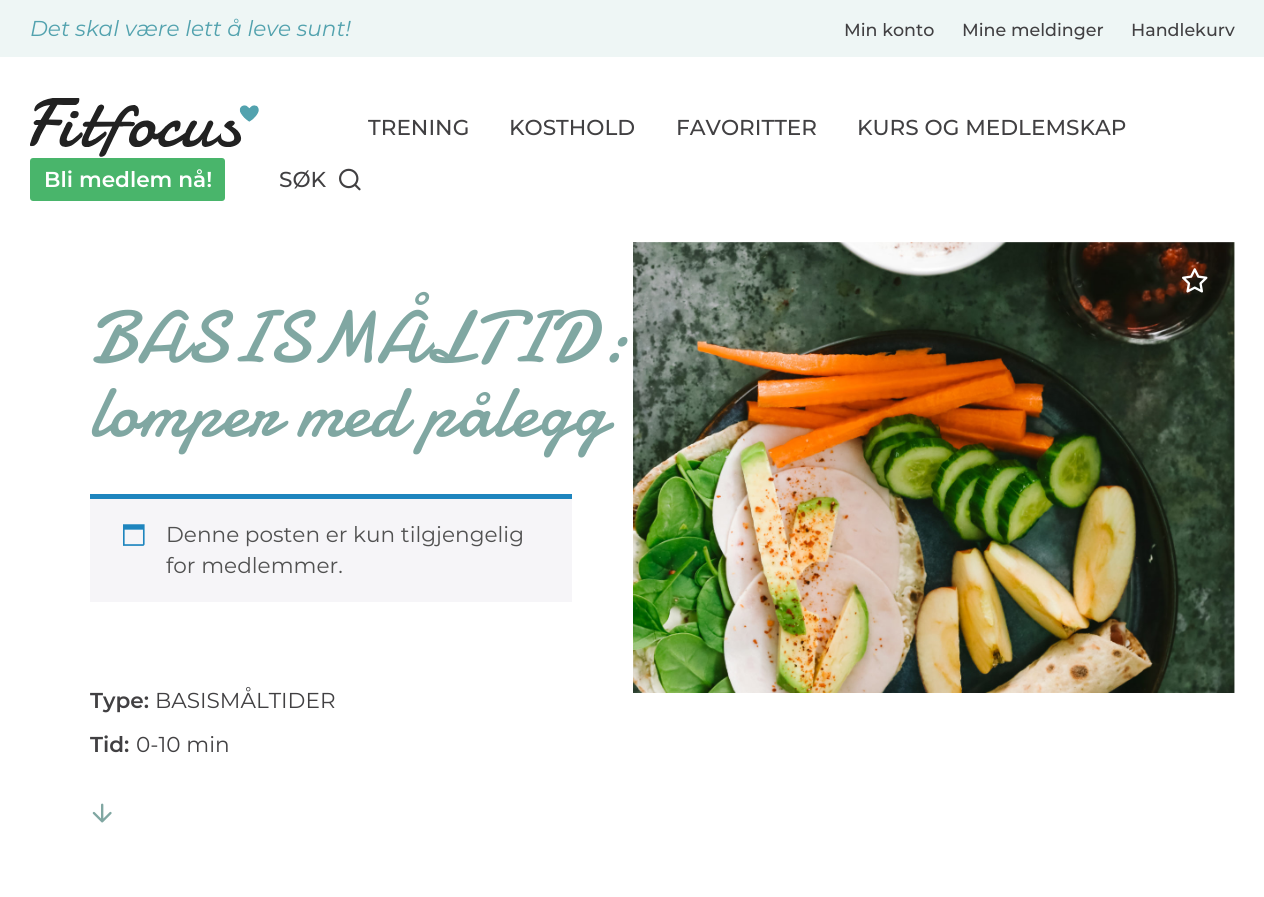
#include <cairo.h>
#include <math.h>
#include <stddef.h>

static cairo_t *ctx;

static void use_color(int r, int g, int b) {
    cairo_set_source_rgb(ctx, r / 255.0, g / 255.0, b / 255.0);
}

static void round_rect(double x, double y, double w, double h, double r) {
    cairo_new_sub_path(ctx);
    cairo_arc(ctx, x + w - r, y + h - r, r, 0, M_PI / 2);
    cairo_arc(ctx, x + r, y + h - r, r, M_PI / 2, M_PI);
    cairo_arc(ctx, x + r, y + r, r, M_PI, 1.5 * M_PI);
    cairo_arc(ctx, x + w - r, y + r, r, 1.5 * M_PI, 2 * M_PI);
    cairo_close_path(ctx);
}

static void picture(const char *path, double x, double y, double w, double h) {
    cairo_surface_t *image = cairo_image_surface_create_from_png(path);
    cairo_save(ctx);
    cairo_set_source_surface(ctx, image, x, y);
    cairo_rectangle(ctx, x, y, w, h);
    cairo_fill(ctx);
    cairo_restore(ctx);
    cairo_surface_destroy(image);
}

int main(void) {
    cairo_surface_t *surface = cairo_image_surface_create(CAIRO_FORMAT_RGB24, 1264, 897);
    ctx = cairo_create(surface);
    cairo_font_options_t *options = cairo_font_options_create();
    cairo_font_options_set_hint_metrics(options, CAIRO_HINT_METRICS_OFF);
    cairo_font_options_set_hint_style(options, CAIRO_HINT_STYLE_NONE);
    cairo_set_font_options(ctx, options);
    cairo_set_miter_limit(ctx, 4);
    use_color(255, 255, 255);
    cairo_paint(ctx);
    use_color(238, 246, 245);
    cairo_rectangle(ctx, 0, 0, 1264, 57);
    cairo_fill(ctx);
    cairo_select_font_face(ctx, "Montserrat", CAIRO_FONT_SLANT_ITALIC, CAIRO_FONT_WEIGHT_NORMAL);
    cairo_set_font_size(ctx, 21.6);
    use_color(82, 162, 174);
    cairo_move_to(ctx, 30, 36);
    cairo_show_text(ctx, "Det skal være lett å leve sunt!");
    cairo_select_font_face(ctx, "Montserrat Medium", CAIRO_FONT_SLANT_NORMAL, CAIRO_FONT_WEIGHT_NORMAL);
    cairo_set_font_size(ctx, 17.5);
    use_color(65, 64, 66);
    cairo_move_to(ctx, 844, 36);
    cairo_show_text(ctx, "Min konto");
    cairo_move_to(ctx, 962, 36);
    cairo_show_text(ctx, "Mine meldinger");
    cairo_move_to(ctx, 1131, 36);
    cairo_show_text(ctx, "Handlekurv");
    picture("img1.png", 30, 98, 229, 59);
    cairo_set_font_size(ctx, 21.6);
    cairo_move_to(ctx, 368, 135);
    cairo_show_text(ctx, "TRENING");
    cairo_move_to(ctx, 509, 135);
    cairo_show_text(ctx, "KOSTHOLD");
    cairo_move_to(ctx, 676, 135);
    cairo_show_text(ctx, "FAVORITTER");
    cairo_move_to(ctx, 857, 135);
    cairo_show_text(ctx, "KURS OG MEDLEMSKAP");
    use_color(73, 181, 107);
    round_rect(30, 158, 195, 43, 3);
    cairo_fill(ctx);
    cairo_select_font_face(ctx, "Montserrat SemiBold", CAIRO_FONT_SLANT_NORMAL, CAIRO_FONT_WEIGHT_NORMAL);
    use_color(255, 255, 255);
    cairo_move_to(ctx, 44, 187);
    cairo_show_text(ctx, "Bli medlem nå!");
    cairo_select_font_face(ctx, "Montserrat Medium", CAIRO_FONT_SLANT_NORMAL, CAIRO_FONT_WEIGHT_NORMAL);
    use_color(65, 64, 66);
    cairo_move_to(ctx, 279, 187);
    cairo_show_text(ctx, "SØK");
    picture("img2.png", 339, 168, 22, 23);
    cairo_select_font_face(ctx, "Damion", CAIRO_FONT_SLANT_NORMAL, CAIRO_FONT_WEIGHT_NORMAL);
    cairo_set_font_size(ctx, 74.25);
    use_color(128, 167, 162);
    cairo_move_to(ctx, 90, 362);
    cairo_show_text(ctx, "BASISMÅLTID:");
    cairo_move_to(ctx, 90, 436);
    cairo_show_text(ctx, "lomper med pålegg");
    use_color(246, 245, 248);
    cairo_rectangle(ctx, 90, 499, 482, 103);
    cairo_fill(ctx);
    use_color(30, 133, 190);
    cairo_rectangle(ctx, 90, 494, 482, 5);
    cairo_fill(ctx);
    picture("img3.png", 123, 524, 22, 22);
    cairo_select_font_face(ctx, "Montserrat", CAIRO_FONT_SLANT_NORMAL, CAIRO_FONT_WEIGHT_NORMAL);
    cairo_set_font_size(ctx, 21.6);
    use_color(81, 81, 81);
    cairo_move_to(ctx, 166, 542);
    cairo_show_text(ctx, "Denne posten er kun tilgjengelig");
    cairo_move_to(ctx, 166, 573);
    cairo_show_text(ctx, "for medlemmer.");
    cairo_select_font_face(ctx, "Montserrat SemiBold", CAIRO_FONT_SLANT_NORMAL, CAIRO_FONT_WEIGHT_NORMAL);
    use_color(65, 64, 66);
    cairo_move_to(ctx, 90, 708);
    cairo_show_text(ctx, "Type:");
    cairo_select_font_face(ctx, "Montserrat", CAIRO_FONT_SLANT_NORMAL, CAIRO_FONT_WEIGHT_NORMAL);
    cairo_move_to(ctx, 155, 708);
    cairo_show_text(ctx, "BASISMÅLTIDER");
    cairo_select_font_face(ctx, "Montserrat SemiBold", CAIRO_FONT_SLANT_NORMAL, CAIRO_FONT_WEIGHT_NORMAL);
    cairo_move_to(ctx, 90, 752);
    cairo_show_text(ctx, "Tid:");
    cairo_select_font_face(ctx, "Montserrat", CAIRO_FONT_SLANT_NORMAL, CAIRO_FONT_WEIGHT_NORMAL);
    cairo_move_to(ctx, 136, 752);
    cairo_show_text(ctx, "0-10 min");
    picture("img4.png", 92, 803, 20, 20);
    picture("img5.png", 633, 242, 602, 451);
    picture("img6.png", 1182, 268, 26, 25);
    cairo_surface_write_to_png(surface, "result.png");
    cairo_font_options_destroy(options);
    cairo_destroy(ctx);
    cairo_surface_destroy(surface);
    return 0;
}
